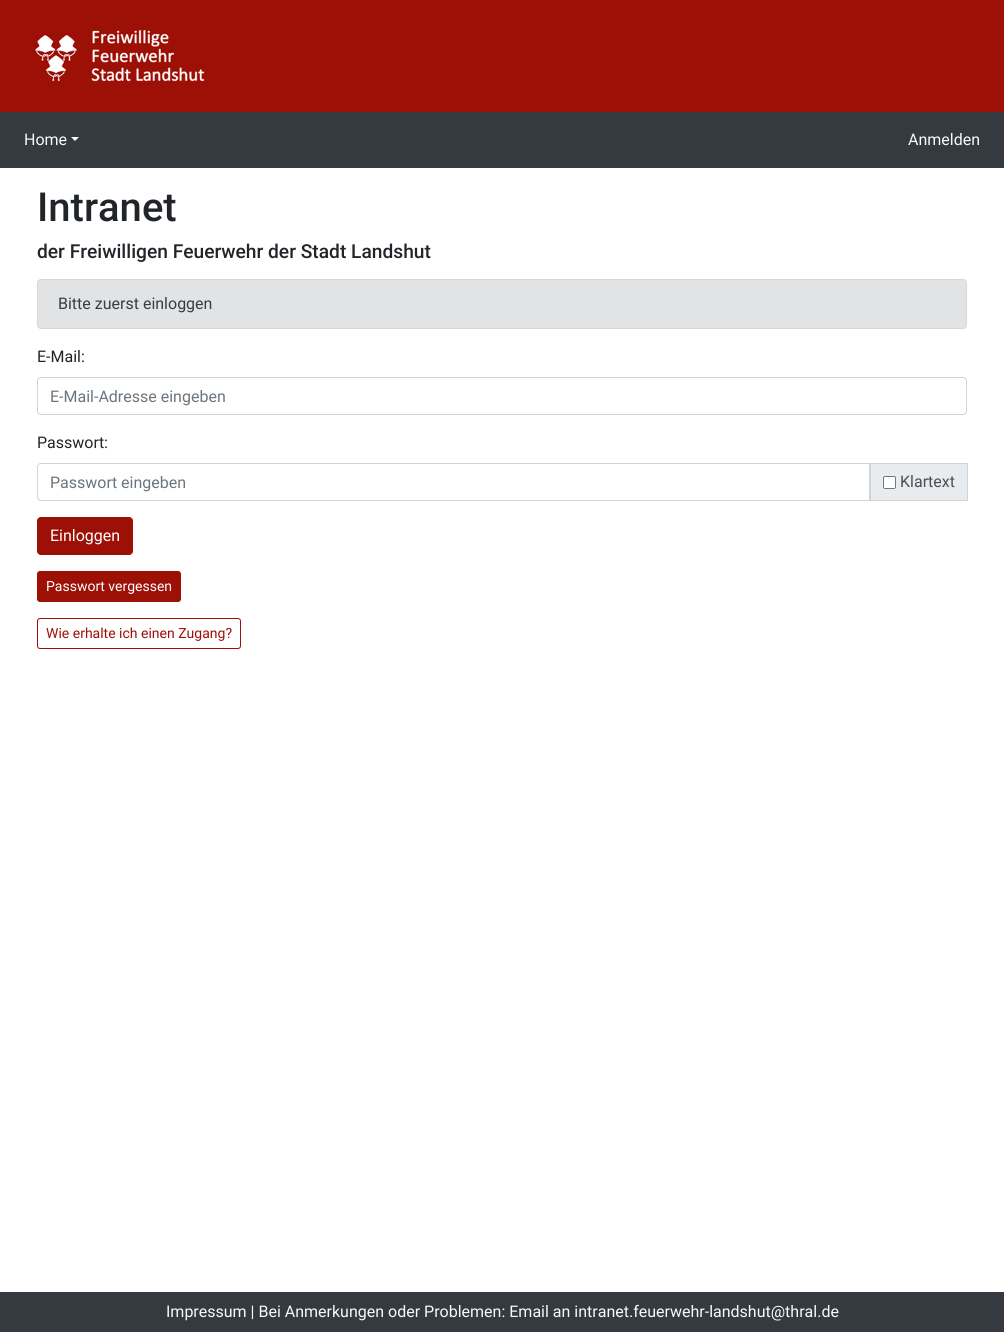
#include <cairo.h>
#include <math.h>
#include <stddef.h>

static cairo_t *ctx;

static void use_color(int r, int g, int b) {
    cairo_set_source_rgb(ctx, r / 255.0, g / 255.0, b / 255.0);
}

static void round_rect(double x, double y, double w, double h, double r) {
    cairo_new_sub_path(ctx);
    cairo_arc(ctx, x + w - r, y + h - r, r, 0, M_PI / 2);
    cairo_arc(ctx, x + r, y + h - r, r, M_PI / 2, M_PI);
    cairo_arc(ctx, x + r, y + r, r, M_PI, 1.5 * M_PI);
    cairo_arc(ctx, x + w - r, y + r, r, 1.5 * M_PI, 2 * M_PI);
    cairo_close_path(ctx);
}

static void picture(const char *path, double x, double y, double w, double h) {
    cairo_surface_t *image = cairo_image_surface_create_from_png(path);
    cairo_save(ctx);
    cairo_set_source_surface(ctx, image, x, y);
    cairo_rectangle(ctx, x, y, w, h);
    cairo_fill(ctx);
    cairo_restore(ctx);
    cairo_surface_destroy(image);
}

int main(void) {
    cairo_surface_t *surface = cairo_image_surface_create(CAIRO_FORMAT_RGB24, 1004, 1332);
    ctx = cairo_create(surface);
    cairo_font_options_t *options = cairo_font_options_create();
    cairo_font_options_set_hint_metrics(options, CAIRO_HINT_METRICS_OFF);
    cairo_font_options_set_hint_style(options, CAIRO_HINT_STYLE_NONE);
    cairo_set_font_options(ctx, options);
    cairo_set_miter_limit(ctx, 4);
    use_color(255, 255, 255);
    cairo_paint(ctx);
    use_color(157, 16, 6);
    cairo_rectangle(ctx, 0, 0, 1004, 112);
    cairo_fill(ctx);
    picture("img1.png", 34, 29, 171, 53);
    use_color(52, 58, 64);
    cairo_rectangle(ctx, 0, 112, 1004, 56);
    cairo_fill(ctx);
    cairo_select_font_face(ctx, "Roboto", CAIRO_FONT_SLANT_NORMAL, CAIRO_FONT_WEIGHT_NORMAL);
    cairo_set_font_size(ctx, 16);
    use_color(248, 249, 250);
    cairo_move_to(ctx, 24, 145);
    cairo_show_text(ctx, "Home");
    cairo_new_path(ctx);
    cairo_move_to(ctx, 71, 137);
    cairo_line_to(ctx, 79, 137);
    cairo_line_to(ctx, 75, 141);
    cairo_close_path(ctx);
    cairo_fill(ctx);
    cairo_move_to(ctx, 908, 145);
    cairo_show_text(ctx, "Anmelden");
    cairo_select_font_face(ctx, "Roboto Medium", CAIRO_FONT_SLANT_NORMAL, CAIRO_FONT_WEIGHT_NORMAL);
    cairo_set_font_size(ctx, 40);
    use_color(33, 37, 41);
    cairo_move_to(ctx, 37, 221);
    cairo_show_text(ctx, "Intranet");
    cairo_set_font_size(ctx, 19.2);
    cairo_move_to(ctx, 37, 258);
    cairo_show_text(ctx, "der Freiwilligen Feuerwehr der Stadt Landshut");
    use_color(226, 227, 229);
    round_rect(37.5, 279.5, 929, 49, 3.5);
    cairo_fill_preserve(ctx);
    use_color(214, 216, 219);
    cairo_set_line_width(ctx, 1);
    cairo_stroke(ctx);
    cairo_select_font_face(ctx, "Roboto", CAIRO_FONT_SLANT_NORMAL, CAIRO_FONT_WEIGHT_NORMAL);
    cairo_set_font_size(ctx, 16);
    use_color(56, 61, 65);
    cairo_move_to(ctx, 58, 309);
    cairo_show_text(ctx, "Bitte zuerst einloggen");
    use_color(33, 37, 41);
    cairo_move_to(ctx, 37, 362);
    cairo_show_text(ctx, "E-Mail:");
    round_rect(37.5, 377.5, 929, 37, 3.5);
    use_color(206, 212, 218);
    cairo_stroke(ctx);
    use_color(108, 117, 125);
    cairo_move_to(ctx, 50, 402);
    cairo_show_text(ctx, "E-Mail-Adresse eingeben");
    use_color(33, 37, 41);
    cairo_move_to(ctx, 37, 448);
    cairo_show_text(ctx, "Passwort:");
    cairo_new_path(ctx);
    cairo_move_to(ctx, 41, 463.5);
    cairo_line_to(ctx, 869.5, 463.5);
    cairo_line_to(ctx, 869.5, 500.5);
    cairo_line_to(ctx, 41, 500.5);
    cairo_curve_to(ctx, 39, 500.5, 37.5, 499, 37.5, 497);
    cairo_line_to(ctx, 37.5, 467);
    cairo_curve_to(ctx, 37.5, 465, 39, 463.5, 41, 463.5);
    cairo_close_path(ctx);
    use_color(206, 212, 218);
    cairo_stroke(ctx);
    use_color(108, 117, 125);
    cairo_move_to(ctx, 50, 488);
    cairo_show_text(ctx, "Passwort eingeben");
    use_color(233, 236, 239);
    cairo_rectangle(ctx, 870.5, 463.5, 97, 37);
    cairo_fill_preserve(ctx);
    use_color(206, 212, 218);
    cairo_stroke(ctx);
    use_color(255, 255, 255);
    round_rect(883.5, 476.5, 12, 12, 1.5);
    cairo_fill_preserve(ctx);
    use_color(118, 118, 118);
    cairo_stroke(ctx);
    use_color(73, 80, 87);
    cairo_move_to(ctx, 900, 487);
    cairo_show_text(ctx, "Klartext");
    use_color(157, 16, 6);
    round_rect(37.5, 517.5, 95, 37, 3.5);
    cairo_fill_preserve(ctx);
    cairo_stroke(ctx);
    use_color(255, 255, 255);
    cairo_move_to(ctx, 50, 541);
    cairo_show_text(ctx, "Einloggen");
    use_color(157, 16, 6);
    round_rect(37.5, 571.5, 143, 30, 2.5);
    cairo_fill_preserve(ctx);
    cairo_stroke(ctx);
    cairo_set_font_size(ctx, 14);
    use_color(255, 255, 255);
    cairo_move_to(ctx, 46, 591);
    cairo_show_text(ctx, "Passwort vergessen");
    round_rect(37.5, 618.5, 203, 30, 2.5);
    use_color(157, 16, 6);
    cairo_stroke(ctx);
    cairo_move_to(ctx, 46, 638);
    cairo_show_text(ctx, "Wie erhalte ich einen Zugang?");
    use_color(52, 58, 64);
    cairo_rectangle(ctx, 0, 1292, 1004, 40);
    cairo_fill(ctx);
    cairo_set_font_size(ctx, 16);
    use_color(248, 249, 250);
    cairo_move_to(ctx, 166, 1317);
    cairo_show_text(ctx, "Impressum | Bei Anmerkungen oder Problemen: Email an intranet.feuerwehr-landshut@thral.de");
    cairo_surface_write_to_png(surface, "result.png");
    cairo_font_options_destroy(options);
    cairo_destroy(ctx);
    cairo_surface_destroy(surface);
    return 0;
}
